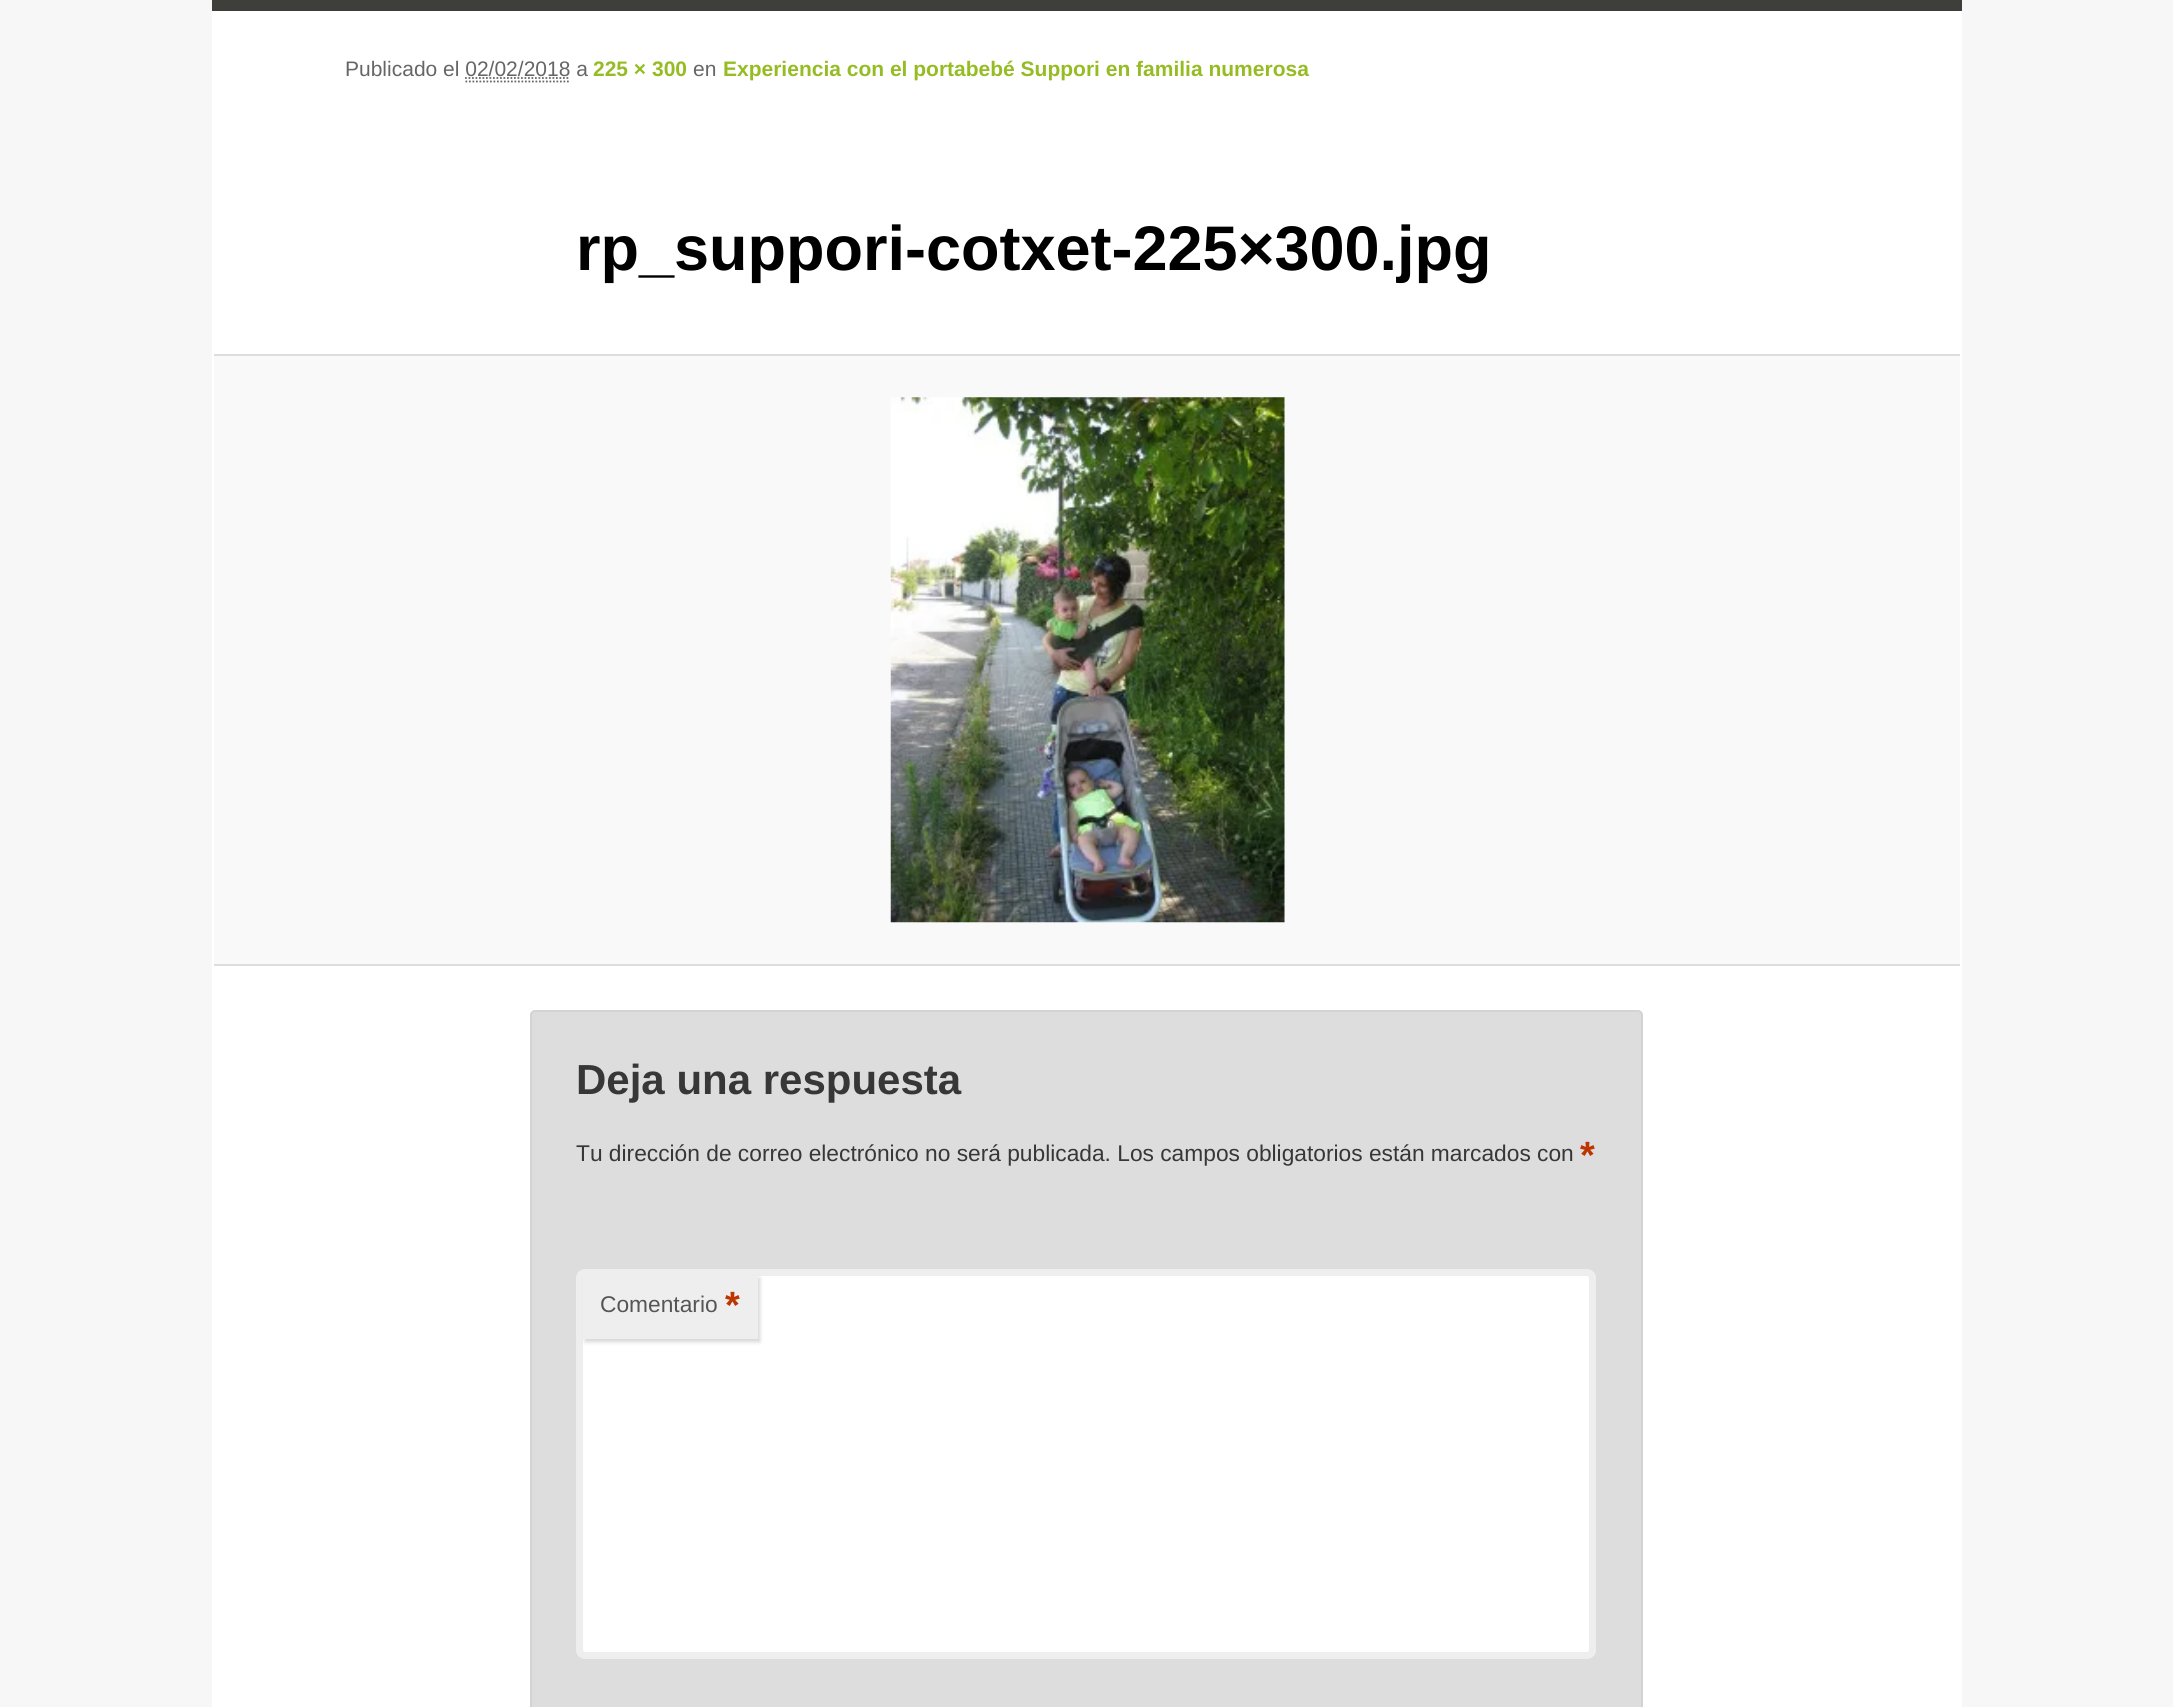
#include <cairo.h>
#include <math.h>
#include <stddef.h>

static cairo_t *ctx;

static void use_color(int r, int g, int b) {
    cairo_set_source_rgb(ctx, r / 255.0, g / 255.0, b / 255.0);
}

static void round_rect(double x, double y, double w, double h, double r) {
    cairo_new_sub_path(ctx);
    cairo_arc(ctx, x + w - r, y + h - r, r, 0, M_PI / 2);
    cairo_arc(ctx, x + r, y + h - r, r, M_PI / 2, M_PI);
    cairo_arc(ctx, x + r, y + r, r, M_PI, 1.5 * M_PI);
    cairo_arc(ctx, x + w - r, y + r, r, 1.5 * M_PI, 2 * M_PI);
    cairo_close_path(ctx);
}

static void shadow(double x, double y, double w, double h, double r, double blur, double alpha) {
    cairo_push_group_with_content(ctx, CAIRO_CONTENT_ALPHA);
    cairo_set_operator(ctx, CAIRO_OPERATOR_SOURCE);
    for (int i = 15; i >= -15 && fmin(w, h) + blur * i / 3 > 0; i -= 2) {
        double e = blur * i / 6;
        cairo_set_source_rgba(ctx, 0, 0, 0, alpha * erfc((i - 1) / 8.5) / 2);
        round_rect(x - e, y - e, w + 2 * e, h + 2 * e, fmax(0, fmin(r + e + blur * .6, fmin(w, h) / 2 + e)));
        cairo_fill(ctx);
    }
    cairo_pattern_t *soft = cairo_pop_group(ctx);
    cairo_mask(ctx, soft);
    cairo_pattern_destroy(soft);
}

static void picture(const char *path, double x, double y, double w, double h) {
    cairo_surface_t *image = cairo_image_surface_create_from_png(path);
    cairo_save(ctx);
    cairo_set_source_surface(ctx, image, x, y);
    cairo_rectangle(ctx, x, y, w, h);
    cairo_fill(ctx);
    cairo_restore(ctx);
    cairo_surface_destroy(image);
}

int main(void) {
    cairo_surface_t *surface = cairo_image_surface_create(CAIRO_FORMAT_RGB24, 2173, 1707);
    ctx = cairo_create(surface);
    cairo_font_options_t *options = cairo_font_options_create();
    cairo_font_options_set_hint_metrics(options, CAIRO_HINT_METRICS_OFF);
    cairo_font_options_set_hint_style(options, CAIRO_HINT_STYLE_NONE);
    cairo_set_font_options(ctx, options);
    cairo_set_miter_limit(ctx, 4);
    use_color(247, 247, 247);
    cairo_paint(ctx);
    use_color(255, 255, 255);
    cairo_rectangle(ctx, 212, 11, 1750, 1696);
    cairo_fill(ctx);
    use_color(62, 63, 58);
    cairo_rectangle(ctx, 212, 0, 1750, 11);
    cairo_fill(ctx);
    cairo_select_font_face(ctx, "Liberation Sans", CAIRO_FONT_SLANT_NORMAL, CAIRO_FONT_WEIGHT_NORMAL);
    cairo_set_font_size(ctx, 21);
    use_color(102, 102, 102);
    cairo_move_to(ctx, 345, 76);
    cairo_show_text(ctx, "Publicado el 02/02/2018 a");
    cairo_select_font_face(ctx, "Liberation Sans", CAIRO_FONT_SLANT_NORMAL, CAIRO_FONT_WEIGHT_BOLD);
    use_color(150, 188, 36);
    cairo_move_to(ctx, 593, 76);
    cairo_show_text(ctx, "225 × 300");
    cairo_select_font_face(ctx, "Liberation Sans", CAIRO_FONT_SLANT_NORMAL, CAIRO_FONT_WEIGHT_NORMAL);
    use_color(102, 102, 102);
    cairo_move_to(ctx, 693, 76);
    cairo_show_text(ctx, "en");
    cairo_select_font_face(ctx, "Liberation Sans", CAIRO_FONT_SLANT_NORMAL, CAIRO_FONT_WEIGHT_BOLD);
    use_color(150, 188, 36);
    cairo_move_to(ctx, 723, 76);
    cairo_show_text(ctx, "Experiencia con el portabebé Suppori en familia numerosa");
    cairo_new_path(ctx);
    cairo_move_to(ctx, 465, 78);
    cairo_line_to(ctx, 570, 78);
    use_color(102, 102, 102);
    cairo_set_line_width(ctx, 1.8);
    cairo_set_dash(ctx, (double[]){1.75, 1.75}, 2, 0);
    cairo_stroke(ctx);
    cairo_new_path(ctx);
    cairo_move_to(ctx, 465.5, 81.5);
    cairo_line_to(ctx, 570.5, 81.5);
    cairo_stroke(ctx);
    cairo_set_font_size(ctx, 63);
    use_color(0, 0, 0);
    cairo_move_to(ctx, 576, 270);
    cairo_show_text(ctx, "rp_suppori-cotxet-225×300.jpg");
    use_color(249, 249, 249);
    cairo_rectangle(ctx, 214, 356, 1746, 608);
    cairo_fill(ctx);
    use_color(221, 221, 221);
    cairo_rectangle(ctx, 214, 354, 1746, 2);
    cairo_fill(ctx);
    cairo_rectangle(ctx, 214, 964, 1746, 2);
    cairo_fill(ctx);
    picture("img1.png", 890, 397, 395, 526);
    round_rect(531, 1011, 1111, 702, 4);
    cairo_fill_preserve(ctx);
    use_color(211, 211, 211);
    cairo_set_line_width(ctx, 2);
    cairo_set_dash(ctx, NULL, 0, 0);
    cairo_stroke(ctx);
    cairo_set_font_size(ctx, 42);
    use_color(55, 55, 55);
    cairo_move_to(ctx, 576, 1094);
    cairo_show_text(ctx, "Deja una respuesta");
    cairo_select_font_face(ctx, "Liberation Sans", CAIRO_FONT_SLANT_NORMAL, CAIRO_FONT_WEIGHT_NORMAL);
    cairo_set_font_size(ctx, 22.75);
    cairo_move_to(ctx, 576, 1161);
    cairo_show_text(ctx, "Tu dirección de correo electrónico no será publicada. Los campos obligatorios están marcados con");
    cairo_select_font_face(ctx, "Liberation Sans", CAIRO_FONT_SLANT_NORMAL, CAIRO_FONT_WEIGHT_BOLD);
    cairo_set_font_size(ctx, 38);
    use_color(189, 53, 0);
    cairo_move_to(ctx, 1580, 1168);
    cairo_show_text(ctx, "*");
    use_color(255, 255, 255);
    round_rect(579.5, 1272.5, 1013, 383, 5.5);
    cairo_fill_preserve(ctx);
    use_color(238, 238, 238);
    cairo_set_line_width(ctx, 7);
    cairo_stroke(ctx);
    use_color(204, 204, 204);
    shadow(585, 1278, 175, 64, 0, 2, 0.8);
    use_color(238, 238, 238);
    cairo_rectangle(ctx, 583, 1275, 175, 64);
    cairo_fill(ctx);
    cairo_select_font_face(ctx, "Liberation Sans", CAIRO_FONT_SLANT_NORMAL, CAIRO_FONT_WEIGHT_NORMAL);
    cairo_set_font_size(ctx, 22.75);
    use_color(85, 85, 85);
    cairo_move_to(ctx, 600, 1312);
    cairo_show_text(ctx, "Comentario");
    cairo_select_font_face(ctx, "Liberation Sans", CAIRO_FONT_SLANT_NORMAL, CAIRO_FONT_WEIGHT_BOLD);
    cairo_set_font_size(ctx, 38);
    use_color(189, 53, 0);
    cairo_move_to(ctx, 725, 1318);
    cairo_show_text(ctx, "*");
    cairo_surface_write_to_png(surface, "result.png");
    cairo_font_options_destroy(options);
    cairo_destroy(ctx);
    cairo_surface_destroy(surface);
    return 0;
}
